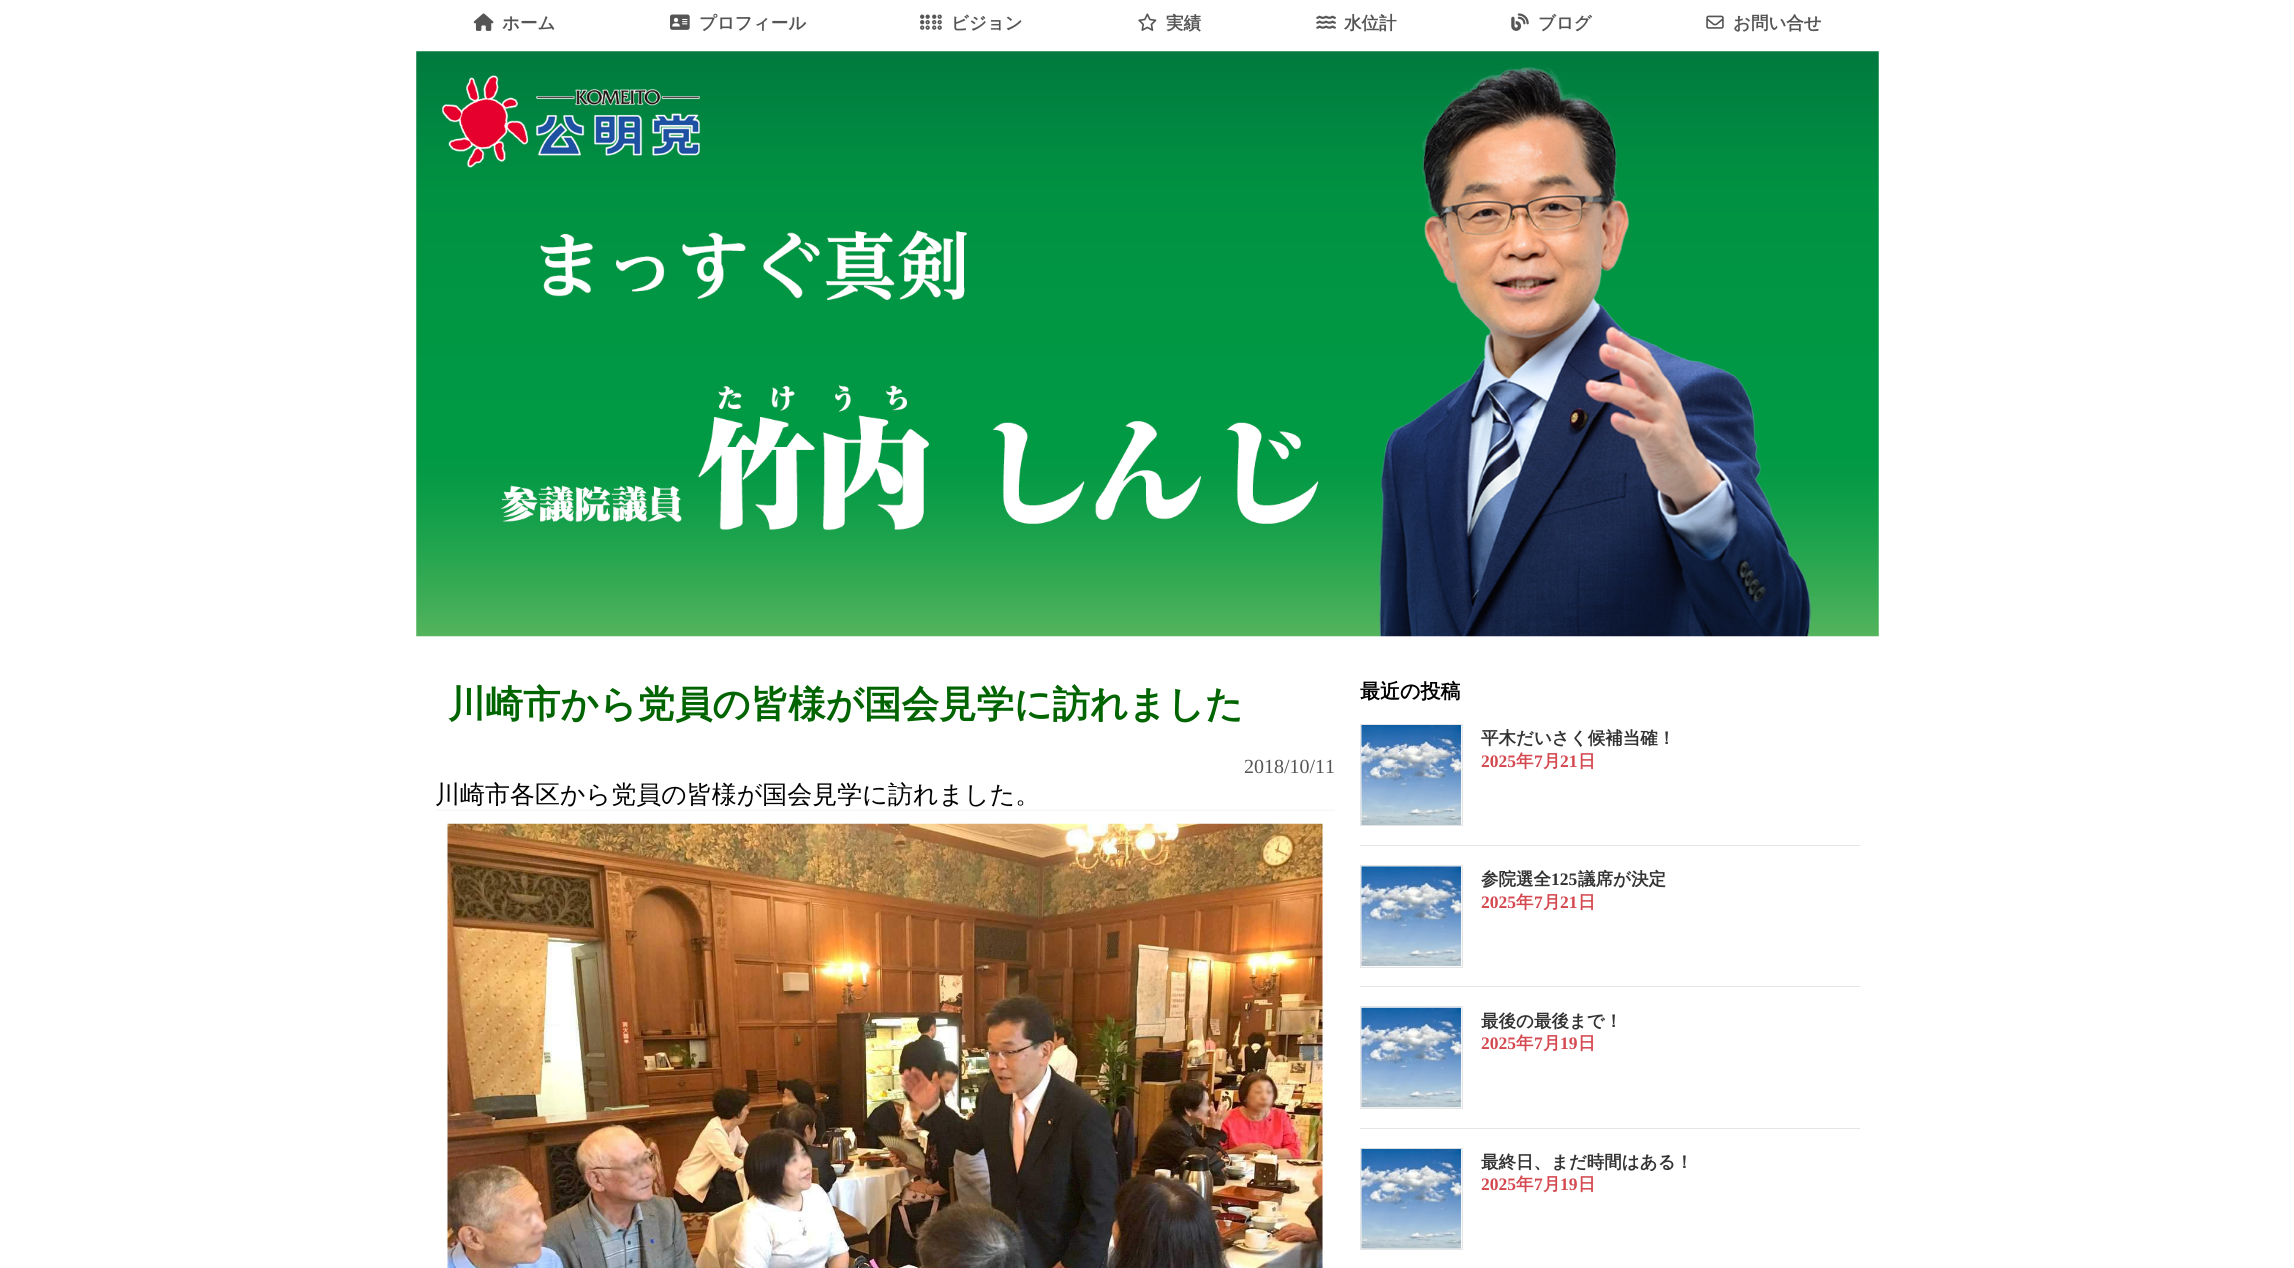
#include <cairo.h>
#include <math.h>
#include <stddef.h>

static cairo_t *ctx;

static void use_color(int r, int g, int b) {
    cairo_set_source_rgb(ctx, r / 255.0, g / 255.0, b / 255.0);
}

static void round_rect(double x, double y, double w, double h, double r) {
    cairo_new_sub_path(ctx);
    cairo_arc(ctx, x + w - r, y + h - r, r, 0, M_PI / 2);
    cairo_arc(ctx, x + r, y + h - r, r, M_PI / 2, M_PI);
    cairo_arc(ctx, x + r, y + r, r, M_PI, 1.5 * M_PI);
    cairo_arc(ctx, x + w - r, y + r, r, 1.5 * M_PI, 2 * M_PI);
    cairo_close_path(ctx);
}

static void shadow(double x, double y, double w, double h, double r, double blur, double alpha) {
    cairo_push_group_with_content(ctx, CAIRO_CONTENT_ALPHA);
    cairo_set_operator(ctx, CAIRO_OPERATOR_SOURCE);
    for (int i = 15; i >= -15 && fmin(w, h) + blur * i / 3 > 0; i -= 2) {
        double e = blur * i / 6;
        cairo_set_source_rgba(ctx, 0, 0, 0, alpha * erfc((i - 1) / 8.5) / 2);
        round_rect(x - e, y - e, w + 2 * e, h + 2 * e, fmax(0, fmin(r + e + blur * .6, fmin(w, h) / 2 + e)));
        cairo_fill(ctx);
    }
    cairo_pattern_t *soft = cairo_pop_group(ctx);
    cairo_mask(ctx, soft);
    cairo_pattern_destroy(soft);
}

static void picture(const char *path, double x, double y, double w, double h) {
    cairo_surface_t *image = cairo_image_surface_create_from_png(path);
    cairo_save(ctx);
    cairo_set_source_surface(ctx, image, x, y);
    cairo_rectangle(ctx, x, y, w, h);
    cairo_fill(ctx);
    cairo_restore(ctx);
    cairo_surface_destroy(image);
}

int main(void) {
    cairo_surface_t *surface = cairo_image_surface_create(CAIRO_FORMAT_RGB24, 2294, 1268);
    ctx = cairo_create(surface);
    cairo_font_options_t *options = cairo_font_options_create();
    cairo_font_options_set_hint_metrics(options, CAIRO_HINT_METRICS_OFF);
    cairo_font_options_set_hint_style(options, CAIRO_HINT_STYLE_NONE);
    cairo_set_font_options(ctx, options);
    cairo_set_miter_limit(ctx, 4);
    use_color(255, 255, 255);
    cairo_paint(ctx);
    picture("img1.png", 473, 13, 21, 18);
    cairo_select_font_face(ctx, "WenQuanYi Zen Hei", CAIRO_FONT_SLANT_NORMAL, CAIRO_FONT_WEIGHT_BOLD);
    cairo_set_font_size(ctx, 17.5);
    use_color(85, 85, 85);
    cairo_move_to(ctx, 502, 29);
    cairo_show_text(ctx, "ホーム");
    picture("img2.png", 670, 14, 20, 16);
    cairo_move_to(ctx, 699, 29);
    cairo_show_text(ctx, "プロフィール");
    picture("img3.png", 920, 14, 22, 16);
    cairo_move_to(ctx, 951, 29);
    cairo_show_text(ctx, "ビジョン");
    picture("img4.png", 1138, 13, 19, 18);
    cairo_move_to(ctx, 1166, 29);
    cairo_show_text(ctx, "実績");
    picture("img5.png", 1316, 15, 20, 14);
    cairo_move_to(ctx, 1344, 29);
    cairo_show_text(ctx, "水位計");
    picture("img6.png", 1511, 13, 18, 18);
    cairo_move_to(ctx, 1538, 29);
    cairo_show_text(ctx, "ブログ");
    picture("img7.png", 1706, 15, 18, 14);
    cairo_move_to(ctx, 1733, 29);
    cairo_show_text(ctx, "お問い合せ");
    picture("img8.png", 416, 51, 1463, 586);
    cairo_set_font_size(ctx, 37.5);
    use_color(0, 100, 0);
    cairo_move_to(ctx, 448, 717);
    cairo_show_text(ctx, "川崎市から党員の皆様が国会見学に訪れました");
    cairo_select_font_face(ctx, "Liberation Serif", CAIRO_FONT_SLANT_NORMAL, CAIRO_FONT_WEIGHT_NORMAL);
    cairo_set_font_size(ctx, 20);
    use_color(85, 85, 85);
    cairo_move_to(ctx, 1244, 773);
    cairo_show_text(ctx, "2018/10/11");
    cairo_save(ctx);
    cairo_rectangle(ctx, 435, 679, 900, 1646);
    cairo_clip(ctx);
    use_color(0, 0, 0);
    shadow(436, 813, 900, 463, 0, 2.5, 0.2);
    cairo_restore(ctx);
    cairo_select_font_face(ctx, "WenQuanYi Zen Hei Medium", CAIRO_FONT_SLANT_NORMAL, CAIRO_FONT_WEIGHT_NORMAL);
    cairo_set_font_size(ctx, 25);
    use_color(0, 0, 0);
    cairo_move_to(ctx, 435, 803);
    cairo_show_text(ctx, "川崎市各区から党員の皆様が国会見学に訪れました。");
    use_color(255, 255, 255);
    cairo_rectangle(ctx, 435, 811, 900, 457);
    cairo_fill(ctx);
    picture("img9.png", 447, 823, 876, 445);
    cairo_select_font_face(ctx, "WenQuanYi Zen Hei", CAIRO_FONT_SLANT_NORMAL, CAIRO_FONT_WEIGHT_BOLD);
    cairo_set_font_size(ctx, 20);
    use_color(0, 0, 0);
    cairo_move_to(ctx, 1360, 698);
    cairo_show_text(ctx, "最近の投稿");
    use_color(229, 229, 229);
    cairo_rectangle(ctx, 1360, 845, 500, 1);
    cairo_fill(ctx);
    cairo_rectangle(ctx, 1360.5, 724.5, 102, 101);
    cairo_set_line_width(ctx, 1);
    cairo_stroke(ctx);
    picture("img10.png", 1361, 725, 101, 100);
    cairo_set_font_size(ctx, 17.5);
    use_color(51, 51, 51);
    cairo_move_to(ctx, 1481, 744);
    cairo_show_text(ctx, "平木だいさく候補当確！");
    cairo_select_font_face(ctx, "Liberation Serif", CAIRO_FONT_SLANT_NORMAL, CAIRO_FONT_WEIGHT_BOLD);
    use_color(212, 73, 80);
    cairo_move_to(ctx, 1481, 767);
    cairo_show_text(ctx, "2025");
    cairo_select_font_face(ctx, "WenQuanYi Zen Hei", CAIRO_FONT_SLANT_NORMAL, CAIRO_FONT_WEIGHT_BOLD);
    cairo_move_to(ctx, 1516, 767);
    cairo_show_text(ctx, "年");
    cairo_select_font_face(ctx, "Liberation Serif", CAIRO_FONT_SLANT_NORMAL, CAIRO_FONT_WEIGHT_BOLD);
    cairo_move_to(ctx, 1534, 767);
    cairo_show_text(ctx, "7");
    cairo_select_font_face(ctx, "WenQuanYi Zen Hei", CAIRO_FONT_SLANT_NORMAL, CAIRO_FONT_WEIGHT_BOLD);
    cairo_move_to(ctx, 1543, 767);
    cairo_show_text(ctx, "月");
    cairo_select_font_face(ctx, "Liberation Serif", CAIRO_FONT_SLANT_NORMAL, CAIRO_FONT_WEIGHT_BOLD);
    cairo_move_to(ctx, 1560, 767);
    cairo_show_text(ctx, "21");
    cairo_select_font_face(ctx, "WenQuanYi Zen Hei", CAIRO_FONT_SLANT_NORMAL, CAIRO_FONT_WEIGHT_BOLD);
    cairo_move_to(ctx, 1578, 767);
    cairo_show_text(ctx, "日");
    use_color(229, 229, 229);
    cairo_rectangle(ctx, 1360, 986, 500, 1);
    cairo_fill(ctx);
    cairo_rectangle(ctx, 1360.5, 865.5, 102, 102);
    cairo_stroke(ctx);
    picture("img11.png", 1361, 866, 101, 101);
    use_color(51, 51, 51);
    cairo_move_to(ctx, 1481, 885);
    cairo_show_text(ctx, "参院選全");
    cairo_select_font_face(ctx, "Liberation Serif", CAIRO_FONT_SLANT_NORMAL, CAIRO_FONT_WEIGHT_BOLD);
    cairo_move_to(ctx, 1551, 885);
    cairo_show_text(ctx, "125");
    cairo_select_font_face(ctx, "WenQuanYi Zen Hei", CAIRO_FONT_SLANT_NORMAL, CAIRO_FONT_WEIGHT_BOLD);
    cairo_move_to(ctx, 1578, 885);
    cairo_show_text(ctx, "議席が決定");
    cairo_select_font_face(ctx, "Liberation Serif", CAIRO_FONT_SLANT_NORMAL, CAIRO_FONT_WEIGHT_BOLD);
    use_color(212, 73, 80);
    cairo_move_to(ctx, 1481, 908);
    cairo_show_text(ctx, "2025");
    cairo_select_font_face(ctx, "WenQuanYi Zen Hei", CAIRO_FONT_SLANT_NORMAL, CAIRO_FONT_WEIGHT_BOLD);
    cairo_move_to(ctx, 1516, 908);
    cairo_show_text(ctx, "年");
    cairo_select_font_face(ctx, "Liberation Serif", CAIRO_FONT_SLANT_NORMAL, CAIRO_FONT_WEIGHT_BOLD);
    cairo_move_to(ctx, 1534, 908);
    cairo_show_text(ctx, "7");
    cairo_select_font_face(ctx, "WenQuanYi Zen Hei", CAIRO_FONT_SLANT_NORMAL, CAIRO_FONT_WEIGHT_BOLD);
    cairo_move_to(ctx, 1543, 908);
    cairo_show_text(ctx, "月");
    cairo_select_font_face(ctx, "Liberation Serif", CAIRO_FONT_SLANT_NORMAL, CAIRO_FONT_WEIGHT_BOLD);
    cairo_move_to(ctx, 1560, 908);
    cairo_show_text(ctx, "21");
    cairo_select_font_face(ctx, "WenQuanYi Zen Hei", CAIRO_FONT_SLANT_NORMAL, CAIRO_FONT_WEIGHT_BOLD);
    cairo_move_to(ctx, 1578, 908);
    cairo_show_text(ctx, "日");
    use_color(229, 229, 229);
    cairo_rectangle(ctx, 1360, 1128, 500, 1);
    cairo_fill(ctx);
    cairo_rectangle(ctx, 1360.5, 1006.5, 102, 102);
    cairo_stroke(ctx);
    picture("img12.png", 1361, 1007, 101, 101);
    use_color(51, 51, 51);
    cairo_move_to(ctx, 1481, 1027);
    cairo_show_text(ctx, "最後の最後まで！");
    cairo_select_font_face(ctx, "Liberation Serif", CAIRO_FONT_SLANT_NORMAL, CAIRO_FONT_WEIGHT_BOLD);
    use_color(212, 73, 80);
    cairo_move_to(ctx, 1481, 1049);
    cairo_show_text(ctx, "2025");
    cairo_select_font_face(ctx, "WenQuanYi Zen Hei", CAIRO_FONT_SLANT_NORMAL, CAIRO_FONT_WEIGHT_BOLD);
    cairo_move_to(ctx, 1516, 1049);
    cairo_show_text(ctx, "年");
    cairo_select_font_face(ctx, "Liberation Serif", CAIRO_FONT_SLANT_NORMAL, CAIRO_FONT_WEIGHT_BOLD);
    cairo_move_to(ctx, 1534, 1049);
    cairo_show_text(ctx, "7");
    cairo_select_font_face(ctx, "WenQuanYi Zen Hei", CAIRO_FONT_SLANT_NORMAL, CAIRO_FONT_WEIGHT_BOLD);
    cairo_move_to(ctx, 1543, 1049);
    cairo_show_text(ctx, "月");
    cairo_select_font_face(ctx, "Liberation Serif", CAIRO_FONT_SLANT_NORMAL, CAIRO_FONT_WEIGHT_BOLD);
    cairo_move_to(ctx, 1560, 1049);
    cairo_show_text(ctx, "19");
    cairo_select_font_face(ctx, "WenQuanYi Zen Hei", CAIRO_FONT_SLANT_NORMAL, CAIRO_FONT_WEIGHT_BOLD);
    cairo_move_to(ctx, 1578, 1049);
    cairo_show_text(ctx, "日");
    cairo_rectangle(ctx, 1360.5, 1148.5, 102, 101);
    use_color(229, 229, 229);
    cairo_stroke(ctx);
    picture("img13.png", 1361, 1148, 101, 101);
    use_color(51, 51, 51);
    cairo_move_to(ctx, 1481, 1168);
    cairo_show_text(ctx, "最終日、まだ時間はある！");
    cairo_select_font_face(ctx, "Liberation Serif", CAIRO_FONT_SLANT_NORMAL, CAIRO_FONT_WEIGHT_BOLD);
    use_color(212, 73, 80);
    cairo_move_to(ctx, 1481, 1190);
    cairo_show_text(ctx, "2025");
    cairo_select_font_face(ctx, "WenQuanYi Zen Hei", CAIRO_FONT_SLANT_NORMAL, CAIRO_FONT_WEIGHT_BOLD);
    cairo_move_to(ctx, 1516, 1190);
    cairo_show_text(ctx, "年");
    cairo_select_font_face(ctx, "Liberation Serif", CAIRO_FONT_SLANT_NORMAL, CAIRO_FONT_WEIGHT_BOLD);
    cairo_move_to(ctx, 1534, 1190);
    cairo_show_text(ctx, "7");
    cairo_select_font_face(ctx, "WenQuanYi Zen Hei", CAIRO_FONT_SLANT_NORMAL, CAIRO_FONT_WEIGHT_BOLD);
    cairo_move_to(ctx, 1543, 1190);
    cairo_show_text(ctx, "月");
    cairo_select_font_face(ctx, "Liberation Serif", CAIRO_FONT_SLANT_NORMAL, CAIRO_FONT_WEIGHT_BOLD);
    cairo_move_to(ctx, 1560, 1190);
    cairo_show_text(ctx, "19");
    cairo_select_font_face(ctx, "WenQuanYi Zen Hei", CAIRO_FONT_SLANT_NORMAL, CAIRO_FONT_WEIGHT_BOLD);
    cairo_move_to(ctx, 1578, 1190);
    cairo_show_text(ctx, "日");
    cairo_surface_write_to_png(surface, "result.png");
    cairo_font_options_destroy(options);
    cairo_destroy(ctx);
    cairo_surface_destroy(surface);
    return 0;
}
